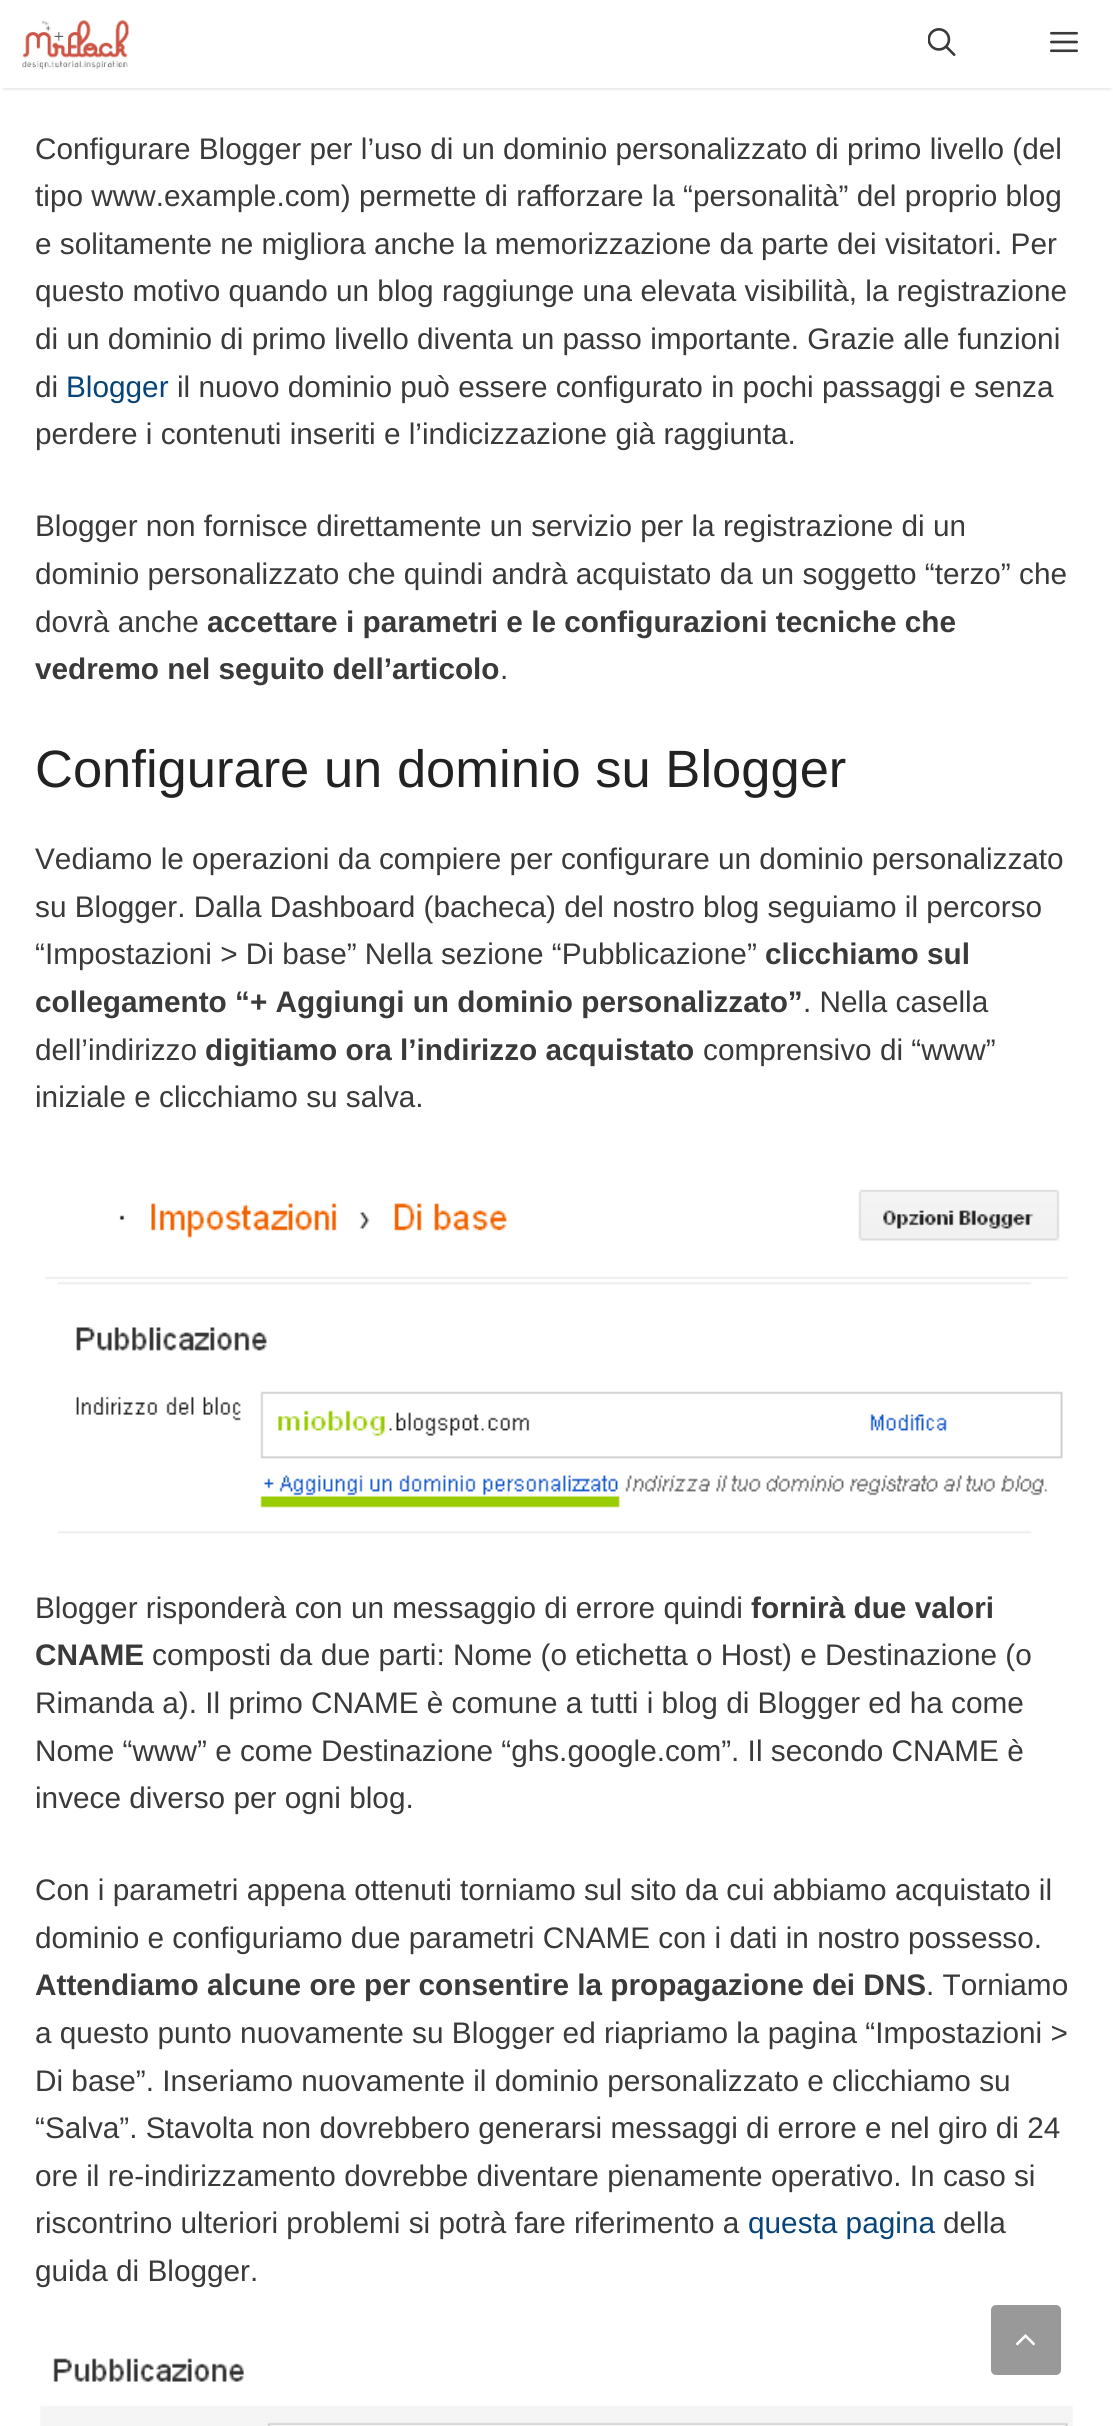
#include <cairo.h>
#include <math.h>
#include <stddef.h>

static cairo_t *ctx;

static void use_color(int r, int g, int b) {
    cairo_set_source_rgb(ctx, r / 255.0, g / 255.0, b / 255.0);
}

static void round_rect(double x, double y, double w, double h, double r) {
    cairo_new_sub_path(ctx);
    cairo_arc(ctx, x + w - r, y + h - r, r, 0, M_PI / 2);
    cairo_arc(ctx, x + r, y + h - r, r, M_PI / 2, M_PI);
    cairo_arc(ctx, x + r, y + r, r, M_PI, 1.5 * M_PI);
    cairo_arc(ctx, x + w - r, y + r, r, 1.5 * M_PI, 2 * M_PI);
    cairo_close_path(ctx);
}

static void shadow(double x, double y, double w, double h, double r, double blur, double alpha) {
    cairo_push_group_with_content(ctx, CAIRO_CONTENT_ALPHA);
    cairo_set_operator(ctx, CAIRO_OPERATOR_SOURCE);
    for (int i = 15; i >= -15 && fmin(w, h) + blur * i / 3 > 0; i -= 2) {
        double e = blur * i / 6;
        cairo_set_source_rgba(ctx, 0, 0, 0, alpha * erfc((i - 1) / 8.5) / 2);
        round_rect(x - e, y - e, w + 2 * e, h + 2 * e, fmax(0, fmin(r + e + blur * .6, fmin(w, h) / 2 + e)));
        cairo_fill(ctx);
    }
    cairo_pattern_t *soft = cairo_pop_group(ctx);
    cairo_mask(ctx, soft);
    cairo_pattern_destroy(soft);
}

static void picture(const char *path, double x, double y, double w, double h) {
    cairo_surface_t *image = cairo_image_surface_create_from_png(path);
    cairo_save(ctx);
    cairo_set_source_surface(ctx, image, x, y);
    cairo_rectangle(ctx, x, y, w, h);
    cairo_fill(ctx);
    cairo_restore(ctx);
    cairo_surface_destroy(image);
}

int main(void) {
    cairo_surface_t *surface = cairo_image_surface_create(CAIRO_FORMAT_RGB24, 1113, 2426);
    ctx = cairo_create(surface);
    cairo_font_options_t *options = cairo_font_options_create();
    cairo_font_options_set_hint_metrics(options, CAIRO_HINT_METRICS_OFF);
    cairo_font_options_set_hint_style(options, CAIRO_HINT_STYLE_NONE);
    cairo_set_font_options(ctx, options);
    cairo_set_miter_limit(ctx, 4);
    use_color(255, 255, 255);
    cairo_paint(ctx);
    use_color(0, 0, 0);
    shadow(4, 7, 1106, 81, 0, 2, 0.2);
    use_color(255, 255, 255);
    cairo_rectangle(ctx, 1, 4, 1112, 84);
    cairo_fill(ctx);
    picture("img1.png", 22, 20, 108, 50);
    picture("img2.png", 928, 28, 28, 28);
    picture("img3.png", 1050, 31, 28, 22);
    cairo_select_font_face(ctx, "Liberation Sans", CAIRO_FONT_SLANT_NORMAL, CAIRO_FONT_WEIGHT_NORMAL);
    cairo_set_font_size(ctx, 29.75);
    use_color(58, 58, 58);
    cairo_move_to(ctx, 35, 159);
    cairo_show_text(ctx, "Configurare Blogger per l’uso di un dominio personalizzato di primo livello (del");
    cairo_move_to(ctx, 35, 206);
    cairo_show_text(ctx, "tipo www.example.com) permette di rafforzare la “personalità” del proprio blog");
    cairo_move_to(ctx, 35, 254);
    cairo_show_text(ctx, "e solitamente ne migliora anche la memorizzazione da parte dei visitatori. Per");
    cairo_move_to(ctx, 35, 301);
    cairo_show_text(ctx, "questo motivo quando un blog raggiunge una elevata visibilità, la registrazione");
    cairo_move_to(ctx, 35, 349);
    cairo_show_text(ctx, "di un dominio di primo livello diventa un passo importante. Grazie alle funzioni");
    cairo_move_to(ctx, 35, 397);
    cairo_show_text(ctx, "di");
    use_color(6, 68, 122);
    cairo_move_to(ctx, 66, 397);
    cairo_show_text(ctx, "Blogger");
    use_color(58, 58, 58);
    cairo_move_to(ctx, 177, 397);
    cairo_show_text(ctx, "il nuovo dominio può essere configurato in pochi passaggi e senza");
    cairo_move_to(ctx, 35, 444);
    cairo_show_text(ctx, "perdere i contenuti inseriti e l’indicizzazione già raggiunta.");
    cairo_move_to(ctx, 35, 536);
    cairo_show_text(ctx, "Blogger non fornisce direttamente un servizio per la registrazione di un");
    cairo_move_to(ctx, 35, 584);
    cairo_show_text(ctx, "dominio personalizzato che quindi andrà acquistato da un soggetto “terzo” che");
    cairo_move_to(ctx, 35, 632);
    cairo_show_text(ctx, "dovrà anche");
    cairo_select_font_face(ctx, "Liberation Sans", CAIRO_FONT_SLANT_NORMAL, CAIRO_FONT_WEIGHT_BOLD);
    cairo_move_to(ctx, 207, 632);
    cairo_show_text(ctx, "accettare i parametri e le configurazioni tecniche che");
    cairo_move_to(ctx, 35, 679);
    cairo_show_text(ctx, "vedremo nel seguito dell’articolo");
    cairo_select_font_face(ctx, "Liberation Sans", CAIRO_FONT_SLANT_NORMAL, CAIRO_FONT_WEIGHT_NORMAL);
    cairo_move_to(ctx, 500, 679);
    cairo_show_text(ctx, ".");
    cairo_set_font_size(ctx, 52.5);
    use_color(34, 34, 34);
    cairo_move_to(ctx, 35, 787);
    cairo_show_text(ctx, "Configurare un dominio su Blogger");
    cairo_set_font_size(ctx, 29.75);
    use_color(58, 58, 58);
    cairo_move_to(ctx, 35, 869);
    cairo_show_text(ctx, "Vediamo le operazioni da compiere per configurare un dominio personalizzato");
    cairo_move_to(ctx, 35, 917);
    cairo_show_text(ctx, "su Blogger. Dalla Dashboard (bacheca) del nostro blog seguiamo il percorso");
    cairo_move_to(ctx, 35, 964);
    cairo_show_text(ctx, "“Impostazioni > Di base” Nella sezione “Pubblicazione”");
    cairo_select_font_face(ctx, "Liberation Sans", CAIRO_FONT_SLANT_NORMAL, CAIRO_FONT_WEIGHT_BOLD);
    cairo_move_to(ctx, 765, 964);
    cairo_show_text(ctx, "clicchiamo sul");
    cairo_move_to(ctx, 35, 1012);
    cairo_show_text(ctx, "collegamento “+ Aggiungi un dominio personalizzato”");
    cairo_select_font_face(ctx, "Liberation Sans", CAIRO_FONT_SLANT_NORMAL, CAIRO_FONT_WEIGHT_NORMAL);
    cairo_move_to(ctx, 803, 1012);
    cairo_show_text(ctx, ". Nella casella");
    cairo_move_to(ctx, 35, 1060);
    cairo_show_text(ctx, "dell’indirizzo");
    cairo_select_font_face(ctx, "Liberation Sans", CAIRO_FONT_SLANT_NORMAL, CAIRO_FONT_WEIGHT_BOLD);
    cairo_move_to(ctx, 205, 1060);
    cairo_show_text(ctx, "digitiamo ora l’indirizzo acquistato");
    cairo_select_font_face(ctx, "Liberation Sans", CAIRO_FONT_SLANT_NORMAL, CAIRO_FONT_WEIGHT_NORMAL);
    cairo_move_to(ctx, 703, 1060);
    cairo_show_text(ctx, "comprensivo di “www”");
    cairo_move_to(ctx, 35, 1107);
    cairo_show_text(ctx, "iniziale e clicchiamo su salva.");
    picture("img4.png", 45, 1189, 1023, 345);
    cairo_move_to(ctx, 35, 1618);
    cairo_show_text(ctx, "Blogger risponderà con un messaggio di errore quindi");
    cairo_select_font_face(ctx, "Liberation Sans", CAIRO_FONT_SLANT_NORMAL, CAIRO_FONT_WEIGHT_BOLD);
    cairo_move_to(ctx, 751, 1618);
    cairo_show_text(ctx, "fornirà due valori");
    cairo_move_to(ctx, 35, 1665);
    cairo_show_text(ctx, "CNAME");
    cairo_select_font_face(ctx, "Liberation Sans", CAIRO_FONT_SLANT_NORMAL, CAIRO_FONT_WEIGHT_NORMAL);
    cairo_move_to(ctx, 152, 1665);
    cairo_show_text(ctx, "composti da due parti: Nome (o etichetta o Host) e Destinazione (o");
    cairo_move_to(ctx, 35, 1713);
    cairo_show_text(ctx, "Rimanda a). Il primo CNAME è comune a tutti i blog di Blogger ed ha come");
    cairo_move_to(ctx, 35, 1761);
    cairo_show_text(ctx, "Nome “www” e come Destinazione “ghs.google.com”. Il secondo CNAME è");
    cairo_move_to(ctx, 35, 1808);
    cairo_show_text(ctx, "invece diverso per ogni blog.");
    cairo_move_to(ctx, 35, 1900);
    cairo_show_text(ctx, "Con i parametri appena ottenuti torniamo sul sito da cui abbiamo acquistato il");
    cairo_move_to(ctx, 35, 1948);
    cairo_show_text(ctx, "dominio e configuriamo due parametri CNAME con i dati in nostro possesso.");
    cairo_select_font_face(ctx, "Liberation Sans", CAIRO_FONT_SLANT_NORMAL, CAIRO_FONT_WEIGHT_BOLD);
    cairo_move_to(ctx, 35, 1995);
    cairo_show_text(ctx, "Attendiamo alcune ore per consentire la propagazione dei DNS");
    cairo_select_font_face(ctx, "Liberation Sans", CAIRO_FONT_SLANT_NORMAL, CAIRO_FONT_WEIGHT_NORMAL);
    cairo_move_to(ctx, 926, 1995);
    cairo_show_text(ctx, ". Torniamo");
    cairo_move_to(ctx, 35, 2043);
    cairo_show_text(ctx, "a questo punto nuovamente su Blogger ed riapriamo la pagina “Impostazioni >");
    cairo_move_to(ctx, 35, 2091);
    cairo_show_text(ctx, "Di base”. Inseriamo nuovamente il dominio personalizzato e clicchiamo su");
    cairo_move_to(ctx, 35, 2138);
    cairo_show_text(ctx, "“Salva”. Stavolta non dovrebbero generarsi messaggi di errore e nel giro di 24");
    cairo_move_to(ctx, 35, 2186);
    cairo_show_text(ctx, "ore il re-indirizzamento dovrebbe diventare pienamente operativo. In caso si");
    cairo_move_to(ctx, 35, 2233);
    cairo_show_text(ctx, "riscontrino ulteriori problemi si potrà fare riferimento a");
    use_color(6, 68, 122);
    cairo_move_to(ctx, 748, 2233);
    cairo_show_text(ctx, "questa pagina");
    use_color(58, 58, 58);
    cairo_move_to(ctx, 943, 2233);
    cairo_show_text(ctx, "della");
    cairo_move_to(ctx, 35, 2281);
    cairo_show_text(ctx, "guida di Blogger.");
    picture("img5.png", 40, 2358, 1033, 68);
    use_color(153, 153, 153);
    round_rect(991, 2305, 70, 70, 5);
    cairo_fill(ctx);
    picture("img6.png", 1015, 2334, 20, 12);
    cairo_surface_write_to_png(surface, "result.png");
    cairo_font_options_destroy(options);
    cairo_destroy(ctx);
    cairo_surface_destroy(surface);
    return 0;
}
